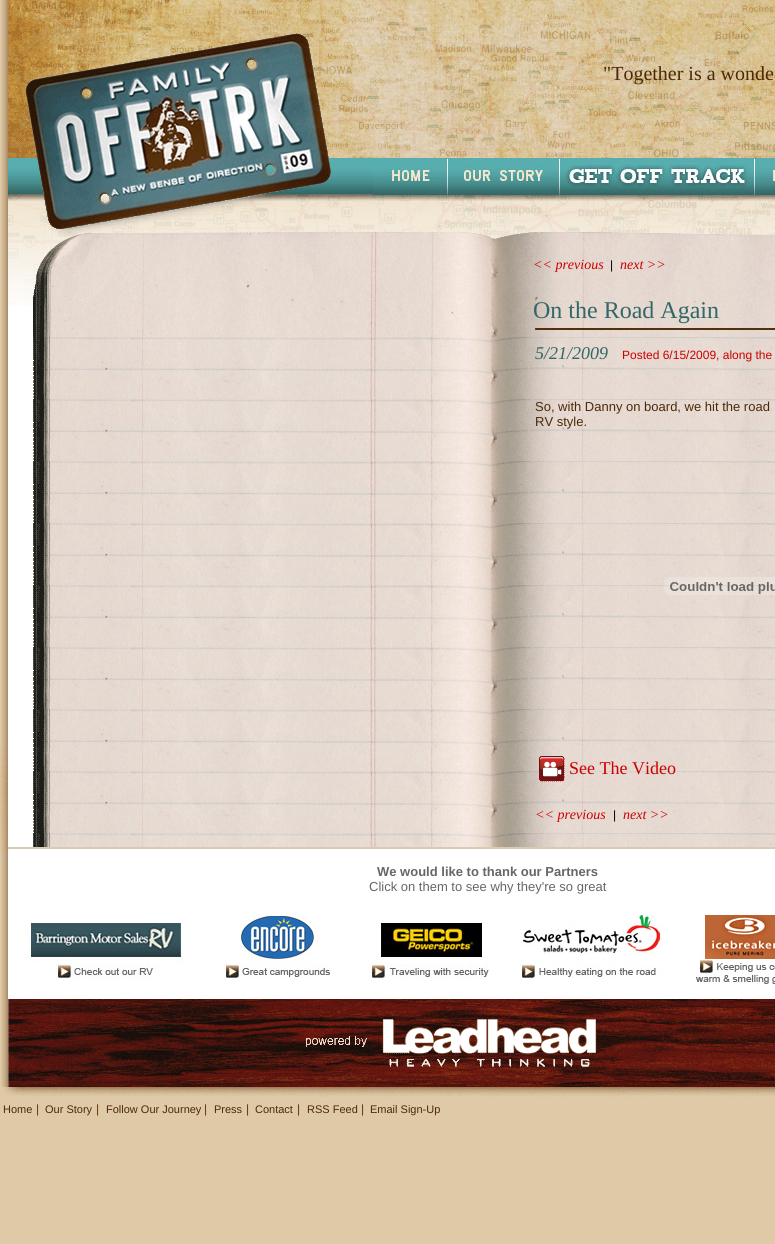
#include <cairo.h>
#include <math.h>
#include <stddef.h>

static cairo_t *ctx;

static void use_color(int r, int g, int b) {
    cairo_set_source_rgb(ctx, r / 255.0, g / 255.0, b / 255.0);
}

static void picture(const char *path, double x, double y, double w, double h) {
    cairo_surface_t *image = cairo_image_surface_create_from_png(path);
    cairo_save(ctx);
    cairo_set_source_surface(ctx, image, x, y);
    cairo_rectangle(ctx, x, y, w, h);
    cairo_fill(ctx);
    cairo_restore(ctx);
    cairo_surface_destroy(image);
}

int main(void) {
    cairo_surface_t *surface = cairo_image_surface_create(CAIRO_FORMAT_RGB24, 775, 1244);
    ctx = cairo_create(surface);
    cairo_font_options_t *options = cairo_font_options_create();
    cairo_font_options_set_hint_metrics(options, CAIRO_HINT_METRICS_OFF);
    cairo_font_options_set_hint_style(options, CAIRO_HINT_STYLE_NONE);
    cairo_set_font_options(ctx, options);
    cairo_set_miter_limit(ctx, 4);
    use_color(223, 201, 167);
    cairo_paint(ctx);
    picture("img1.png", 0, 746, 8, 106);
    picture("img8.png", 8, 0, 767, 158);
    picture("img9.png", 8, 158, 767, 36);
    picture("img10.png", 8, 194, 767, 112);
    picture("img2.png", 26, 33, 305, 196);
    picture("img3.png", 373, 159, 75, 36);
    picture("img4.png", 448, 159, 112, 36);
    picture("img5.png", 560, 159, 195, 36);
    picture("img6.png", 755, 170, 20, 25);
    picture("img7.png", 1, 0, 7, 1087);
    cairo_select_font_face(ctx, "Liberation Serif", CAIRO_FONT_SLANT_NORMAL, CAIRO_FONT_WEIGHT_NORMAL);
    cairo_set_font_size(ctx, 20);
    use_color(77, 41, 8);
    cairo_move_to(ctx, 603, 80);
    cairo_show_text(ctx, "\"Together is a wonde");
    use_color(255, 255, 255);
    cairo_rectangle(ctx, 8, 306, 26, 541);
    cairo_fill(ctx);
    picture("img11.png", 33, 232, 742, 65);
    cairo_select_font_face(ctx, "Liberation Serif", CAIRO_FONT_SLANT_ITALIC, CAIRO_FONT_WEIGHT_NORMAL);
    cairo_set_font_size(ctx, 14);
    use_color(204, 0, 0);
    cairo_move_to(ctx, 533, 269);
    cairo_show_text(ctx, "<< previous");
    cairo_select_font_face(ctx, "Liberation Sans", CAIRO_FONT_SLANT_NORMAL, CAIRO_FONT_WEIGHT_NORMAL);
    cairo_set_font_size(ctx, 12);
    use_color(0, 0, 0);
    cairo_move_to(ctx, 610, 269);
    cairo_show_text(ctx, "|");
    cairo_select_font_face(ctx, "Liberation Serif", CAIRO_FONT_SLANT_ITALIC, CAIRO_FONT_WEIGHT_NORMAL);
    cairo_set_font_size(ctx, 14);
    use_color(204, 0, 0);
    cairo_move_to(ctx, 620, 269);
    cairo_show_text(ctx, "next >>");
    picture("img12.png", 33, 297, 742, 40);
    cairo_select_font_face(ctx, "Liberation Serif", CAIRO_FONT_SLANT_NORMAL, CAIRO_FONT_WEIGHT_NORMAL);
    cairo_set_font_size(ctx, 24);
    use_color(51, 102, 102);
    cairo_move_to(ctx, 533, 318);
    cairo_show_text(ctx, "On the Road Again");
    picture("img13.png", 535, 328, 240, 2);
    picture("img14.png", 33, 337, 742, 510);
    cairo_select_font_face(ctx, "Liberation Serif", CAIRO_FONT_SLANT_ITALIC, CAIRO_FONT_WEIGHT_NORMAL);
    cairo_set_font_size(ctx, 18);
    cairo_move_to(ctx, 535, 359);
    cairo_show_text(ctx, "5/21/2009");
    cairo_select_font_face(ctx, "Liberation Sans", CAIRO_FONT_SLANT_NORMAL, CAIRO_FONT_WEIGHT_NORMAL);
    cairo_set_font_size(ctx, 12);
    use_color(204, 0, 0);
    cairo_move_to(ctx, 622, 359);
    cairo_show_text(ctx, "Posted 6/15/2009, along the");
    cairo_set_font_size(ctx, 13);
    use_color(77, 41, 8);
    cairo_move_to(ctx, 535, 411);
    cairo_show_text(ctx, "So, with Danny on board, we hit the road");
    cairo_move_to(ctx, 535, 426);
    cairo_show_text(ctx, "RV style.");
    picture("img15.png", 664, 577, 111, 18);
    picture("img16.png", 539, 756, 26, 26);
    cairo_select_font_face(ctx, "Liberation Serif", CAIRO_FONT_SLANT_NORMAL, CAIRO_FONT_WEIGHT_NORMAL);
    cairo_set_font_size(ctx, 18);
    use_color(204, 0, 0);
    cairo_move_to(ctx, 569, 774);
    cairo_show_text(ctx, "See The Video");
    cairo_select_font_face(ctx, "Liberation Serif", CAIRO_FONT_SLANT_ITALIC, CAIRO_FONT_WEIGHT_NORMAL);
    cairo_set_font_size(ctx, 14);
    cairo_move_to(ctx, 535, 819);
    cairo_show_text(ctx, "<< previous");
    cairo_select_font_face(ctx, "Liberation Sans", CAIRO_FONT_SLANT_NORMAL, CAIRO_FONT_WEIGHT_NORMAL);
    cairo_set_font_size(ctx, 12);
    use_color(0, 0, 0);
    cairo_move_to(ctx, 613, 819);
    cairo_show_text(ctx, "|");
    cairo_select_font_face(ctx, "Liberation Serif", CAIRO_FONT_SLANT_ITALIC, CAIRO_FONT_WEIGHT_NORMAL);
    cairo_set_font_size(ctx, 14);
    use_color(204, 0, 0);
    cairo_move_to(ctx, 623, 819);
    cairo_show_text(ctx, "next >>");
    use_color(255, 255, 255);
    cairo_rectangle(ctx, 8, 849, 767, 150);
    cairo_fill(ctx);
    use_color(217, 203, 176);
    cairo_rectangle(ctx, 8, 847, 767, 2);
    cairo_fill(ctx);
    cairo_select_font_face(ctx, "Liberation Sans", CAIRO_FONT_SLANT_NORMAL, CAIRO_FONT_WEIGHT_BOLD);
    cairo_set_font_size(ctx, 13);
    use_color(102, 102, 102);
    cairo_move_to(ctx, 377, 876);
    cairo_show_text(ctx, "We would like to thank our Partners");
    cairo_select_font_face(ctx, "Liberation Sans", CAIRO_FONT_SLANT_NORMAL, CAIRO_FONT_WEIGHT_NORMAL);
    cairo_move_to(ctx, 369, 891);
    cairo_show_text(ctx, "Click on them to see why they're so great");
    picture("img17.png", 27, 923, 157, 56);
    picture("img18.png", 224, 915, 107, 64);
    picture("img19.png", 369, 923, 120, 56);
    picture("img20.png", 518, 915, 144, 64);
    picture("img21.png", 696, 915, 79, 70);
    picture("img22.png", 8, 999, 767, 88);
    picture("img23.png", 306, 1018, 291, 49);
    picture("img24.png", 3, 1087, 772, 10);
    cairo_set_font_size(ctx, 11);
    use_color(77, 41, 8);
    cairo_move_to(ctx, 3, 1113);
    cairo_show_text(ctx, "Home");
    cairo_set_font_size(ctx, 12);
    use_color(102, 51, 0);
    cairo_move_to(ctx, 36, 1113);
    cairo_show_text(ctx, "|");
    cairo_set_font_size(ctx, 11);
    use_color(77, 41, 8);
    cairo_move_to(ctx, 45, 1113);
    cairo_show_text(ctx, "Our Story");
    cairo_set_font_size(ctx, 12);
    use_color(102, 51, 0);
    cairo_move_to(ctx, 96, 1113);
    cairo_show_text(ctx, "|");
    cairo_set_font_size(ctx, 11);
    use_color(77, 41, 8);
    cairo_move_to(ctx, 106, 1113);
    cairo_show_text(ctx, "Follow Our Journey");
    cairo_set_font_size(ctx, 12);
    use_color(102, 51, 0);
    cairo_move_to(ctx, 204, 1113);
    cairo_show_text(ctx, "|");
    cairo_set_font_size(ctx, 11);
    use_color(77, 41, 8);
    cairo_move_to(ctx, 214, 1113);
    cairo_show_text(ctx, "Press");
    cairo_set_font_size(ctx, 12);
    use_color(102, 51, 0);
    cairo_move_to(ctx, 246, 1113);
    cairo_show_text(ctx, "|");
    cairo_set_font_size(ctx, 11);
    use_color(77, 41, 8);
    cairo_move_to(ctx, 255, 1113);
    cairo_show_text(ctx, "Contact");
    cairo_set_font_size(ctx, 12);
    use_color(102, 51, 0);
    cairo_move_to(ctx, 297, 1113);
    cairo_show_text(ctx, "|");
    cairo_set_font_size(ctx, 11);
    use_color(77, 41, 8);
    cairo_move_to(ctx, 307, 1113);
    cairo_show_text(ctx, "RSS Feed");
    cairo_set_font_size(ctx, 12);
    use_color(102, 51, 0);
    cairo_move_to(ctx, 361, 1113);
    cairo_show_text(ctx, "|");
    cairo_set_font_size(ctx, 11);
    use_color(77, 41, 8);
    cairo_move_to(ctx, 370, 1113);
    cairo_show_text(ctx, "Email Sign-Up");
    cairo_surface_write_to_png(surface, "result.png");
    cairo_font_options_destroy(options);
    cairo_destroy(ctx);
    cairo_surface_destroy(surface);
    return 0;
}
